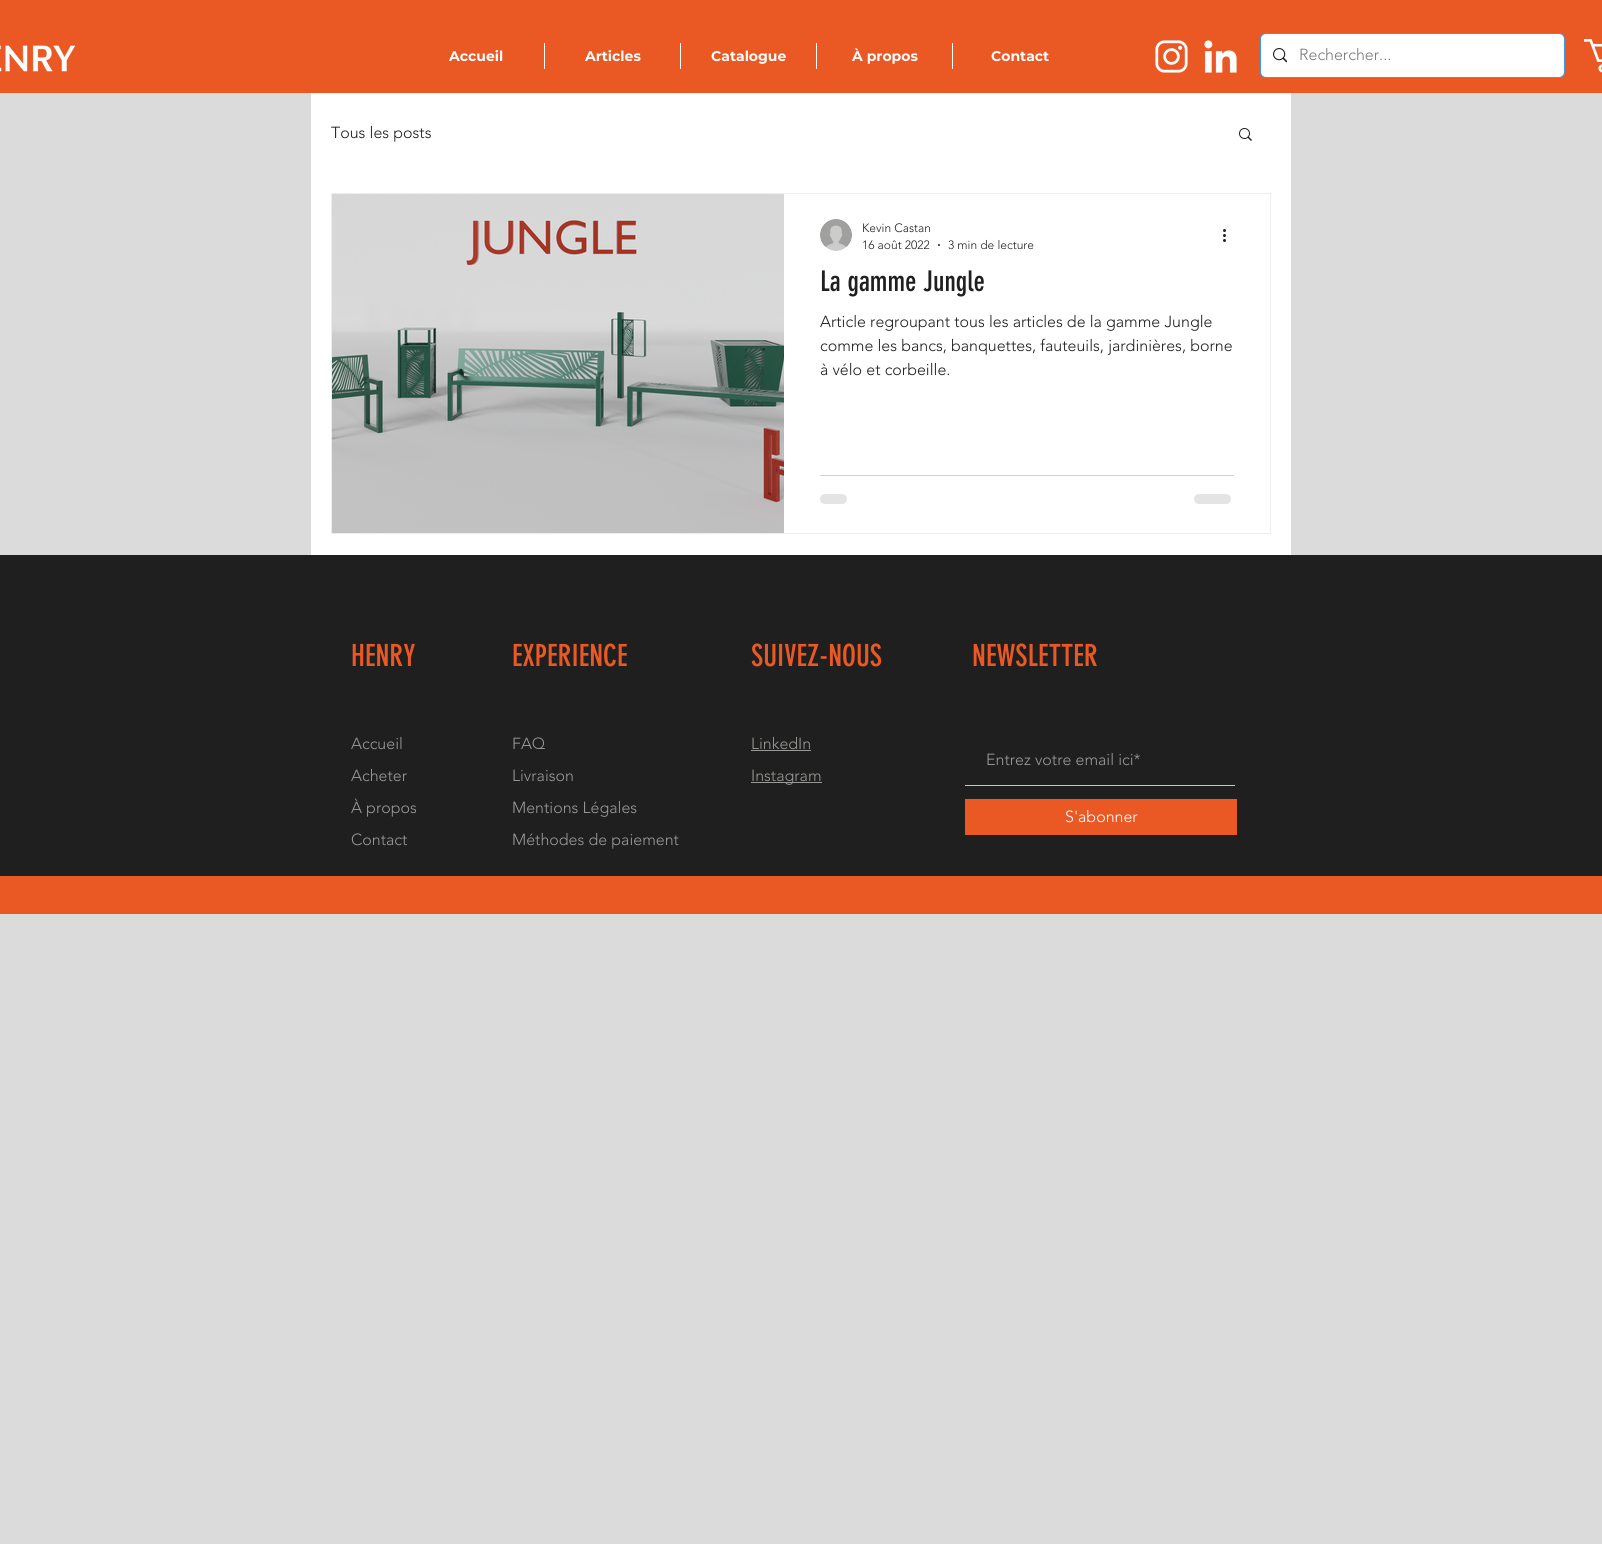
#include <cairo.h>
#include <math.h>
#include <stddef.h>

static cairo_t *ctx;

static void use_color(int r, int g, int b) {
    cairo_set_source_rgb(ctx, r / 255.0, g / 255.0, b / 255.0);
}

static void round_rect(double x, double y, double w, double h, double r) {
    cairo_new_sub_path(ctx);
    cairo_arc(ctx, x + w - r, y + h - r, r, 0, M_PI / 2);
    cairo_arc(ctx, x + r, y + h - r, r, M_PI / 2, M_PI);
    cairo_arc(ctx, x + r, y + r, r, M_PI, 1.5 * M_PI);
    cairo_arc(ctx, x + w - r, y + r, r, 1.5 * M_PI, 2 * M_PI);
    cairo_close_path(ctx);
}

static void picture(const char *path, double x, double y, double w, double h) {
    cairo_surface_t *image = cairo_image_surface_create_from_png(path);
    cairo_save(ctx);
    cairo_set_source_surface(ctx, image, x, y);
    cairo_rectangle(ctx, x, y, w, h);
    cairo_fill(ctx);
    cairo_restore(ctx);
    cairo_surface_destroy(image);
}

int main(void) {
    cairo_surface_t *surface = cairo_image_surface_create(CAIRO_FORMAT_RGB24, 1602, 1544);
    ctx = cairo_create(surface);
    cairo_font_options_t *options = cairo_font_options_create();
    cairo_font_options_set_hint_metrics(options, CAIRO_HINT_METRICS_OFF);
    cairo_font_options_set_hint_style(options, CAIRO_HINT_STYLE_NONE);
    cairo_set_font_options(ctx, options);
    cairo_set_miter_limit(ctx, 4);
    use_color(219, 219, 219);
    cairo_paint(ctx);
    use_color(234, 88, 35);
    cairo_rectangle(ctx, 0, 0, 1602, 93);
    cairo_fill(ctx);
    picture("img1.png", 0, 45, 76, 27);
    cairo_select_font_face(ctx, "Montserrat", CAIRO_FONT_SLANT_NORMAL, CAIRO_FONT_WEIGHT_BOLD);
    cairo_set_font_size(ctx, 14);
    use_color(255, 255, 255);
    cairo_move_to(ctx, 449, 61);
    cairo_show_text(ctx, "Accueil");
    cairo_rectangle(ctx, 544, 43, 1, 26);
    cairo_fill(ctx);
    cairo_move_to(ctx, 585, 61);
    cairo_show_text(ctx, "Articles");
    cairo_rectangle(ctx, 680, 43, 1, 26);
    cairo_fill(ctx);
    cairo_move_to(ctx, 711, 61);
    cairo_show_text(ctx, "Catalogue");
    cairo_rectangle(ctx, 816, 43, 1, 26);
    cairo_fill(ctx);
    cairo_move_to(ctx, 852, 61);
    cairo_show_text(ctx, "À propos");
    cairo_rectangle(ctx, 952, 43, 1, 26);
    cairo_fill(ctx);
    cairo_move_to(ctx, 991, 61);
    cairo_show_text(ctx, "Contact");
    picture("img2.png", 1155, 40, 33, 33);
    picture("img3.png", 1204, 40, 33, 33);
    round_rect(1260.5, 33.5, 304, 44, 5.5);
    use_color(61, 155, 233);
    cairo_set_line_width(ctx, 1);
    cairo_stroke(ctx);
    use_color(255, 255, 255);
    round_rect(1261, 34, 303, 43, 5);
    cairo_fill(ctx);
    picture("img4.png", 1273, 48, 14, 15);
    cairo_select_font_face(ctx, "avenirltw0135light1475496 Light", CAIRO_FONT_SLANT_NORMAL, CAIRO_FONT_WEIGHT_NORMAL);
    cairo_set_font_size(ctx, 16);
    use_color(120, 120, 120);
    cairo_move_to(ctx, 1299, 60);
    cairo_show_text(ctx, "Rechercher...");
    picture("img5.png", 1584, 39, 18, 34);
    use_color(255, 255, 255);
    cairo_rectangle(ctx, 311, 93, 980, 462);
    cairo_fill(ctx);
    use_color(31, 31, 31);
    cairo_move_to(ctx, 331, 138);
    cairo_show_text(ctx, "Tous les posts");
    picture("img6.png", 1239, 128, 13, 13);
    cairo_rectangle(ctx, 331.5, 193.5, 939, 340);
    use_color(238, 236, 236);
    cairo_stroke(ctx);
    picture("img7.png", 332, 194, 452, 339);
    picture("img8.png", 820, 219, 32, 32);
    cairo_set_font_size(ctx, 12);
    use_color(31, 31, 31);
    cairo_move_to(ctx, 862, 232);
    cairo_show_text(ctx, "Kevin Castan");
    cairo_move_to(ctx, 862, 249);
    cairo_show_text(ctx, "16 août 2022");
    cairo_new_path(ctx);
    cairo_arc(ctx, 939, 245, 1, 0, 2 * M_PI);
    cairo_fill(ctx);
    cairo_move_to(ctx, 948, 249);
    cairo_show_text(ctx, "3 min de lecture");
    picture("img9.png", 1223, 229, 3, 13);
    cairo_select_font_face(ctx, "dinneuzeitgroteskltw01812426", CAIRO_FONT_SLANT_NORMAL, CAIRO_FONT_WEIGHT_NORMAL);
    cairo_set_font_size(ctx, 28);
    cairo_move_to(ctx, 820, 291);
    cairo_show_text(ctx, "La gamme Jungle");
    cairo_select_font_face(ctx, "avenirltw0135light1475496 Light", CAIRO_FONT_SLANT_NORMAL, CAIRO_FONT_WEIGHT_NORMAL);
    cairo_set_font_size(ctx, 16);
    cairo_move_to(ctx, 820, 327);
    cairo_show_text(ctx, "Article regroupant tous les articles de la gamme Jungle");
    cairo_move_to(ctx, 820, 351);
    cairo_show_text(ctx, "comme les bancs, banquettes, fauteuils, jardinières, borne");
    cairo_move_to(ctx, 820, 375);
    cairo_show_text(ctx, "à vélo et corbeille.");
    use_color(210, 210, 210);
    cairo_rectangle(ctx, 820, 475, 414, 1);
    cairo_fill(ctx);
    use_color(228, 228, 228);
    round_rect(820, 494, 27, 10, 5);
    cairo_fill(ctx);
    round_rect(1194, 494, 37, 10, 5);
    cairo_fill(ctx);
    use_color(31, 31, 31);
    cairo_rectangle(ctx, 0, 555, 1602, 321);
    cairo_fill(ctx);
    cairo_select_font_face(ctx, "dinneuzeitgroteskltw01812426", CAIRO_FONT_SLANT_NORMAL, CAIRO_FONT_WEIGHT_NORMAL);
    cairo_set_font_size(ctx, 30);
    use_color(234, 88, 35);
    cairo_move_to(ctx, 351, 666);
    cairo_show_text(ctx, "HENRY");
    cairo_move_to(ctx, 512, 666);
    cairo_show_text(ctx, "EXPERIENCE");
    cairo_move_to(ctx, 751, 666);
    cairo_show_text(ctx, "SUIVEZ-NOUS");
    cairo_move_to(ctx, 972, 666);
    cairo_show_text(ctx, "NEWSLETTER");
    cairo_select_font_face(ctx, "avenirltw0135light1475496 Light", CAIRO_FONT_SLANT_NORMAL, CAIRO_FONT_WEIGHT_NORMAL);
    cairo_set_font_size(ctx, 16);
    use_color(153, 153, 151);
    cairo_move_to(ctx, 351, 749);
    cairo_show_text(ctx, "Accueil");
    cairo_move_to(ctx, 351, 781);
    cairo_show_text(ctx, "Acheter");
    cairo_move_to(ctx, 351, 813);
    cairo_show_text(ctx, "À propos");
    cairo_move_to(ctx, 351, 845);
    cairo_show_text(ctx, "Contact");
    cairo_move_to(ctx, 512, 749);
    cairo_show_text(ctx, "FAQ");
    cairo_move_to(ctx, 512, 781);
    cairo_show_text(ctx, "Livraison");
    cairo_move_to(ctx, 512, 813);
    cairo_show_text(ctx, "Mentions Légales");
    cairo_move_to(ctx, 512, 845);
    cairo_show_text(ctx, "Méthodes de paiement");
    cairo_move_to(ctx, 751, 749);
    cairo_show_text(ctx, "LinkedIn");
    cairo_rectangle(ctx, 751, 750, 60, 1);
    cairo_fill(ctx);
    cairo_rectangle(ctx, 751, 782, 71, 1);
    cairo_fill(ctx);
    cairo_move_to(ctx, 751, 781);
    cairo_show_text(ctx, "Instagram");
    use_color(199, 199, 199);
    cairo_rectangle(ctx, 965, 785, 270, 1);
    cairo_fill(ctx);
    use_color(153, 153, 151);
    cairo_move_to(ctx, 986, 765);
    cairo_show_text(ctx, "Entrez votre email ici*");
    use_color(234, 88, 35);
    cairo_rectangle(ctx, 965, 799, 272, 36);
    cairo_fill(ctx);
    use_color(255, 255, 255);
    cairo_move_to(ctx, 1065, 822);
    cairo_show_text(ctx, "S'abonner");
    use_color(234, 88, 35);
    cairo_rectangle(ctx, 0, 876, 1602, 38);
    cairo_fill(ctx);
    cairo_surface_write_to_png(surface, "result.png");
    cairo_font_options_destroy(options);
    cairo_destroy(ctx);
    cairo_surface_destroy(surface);
    return 0;
}
